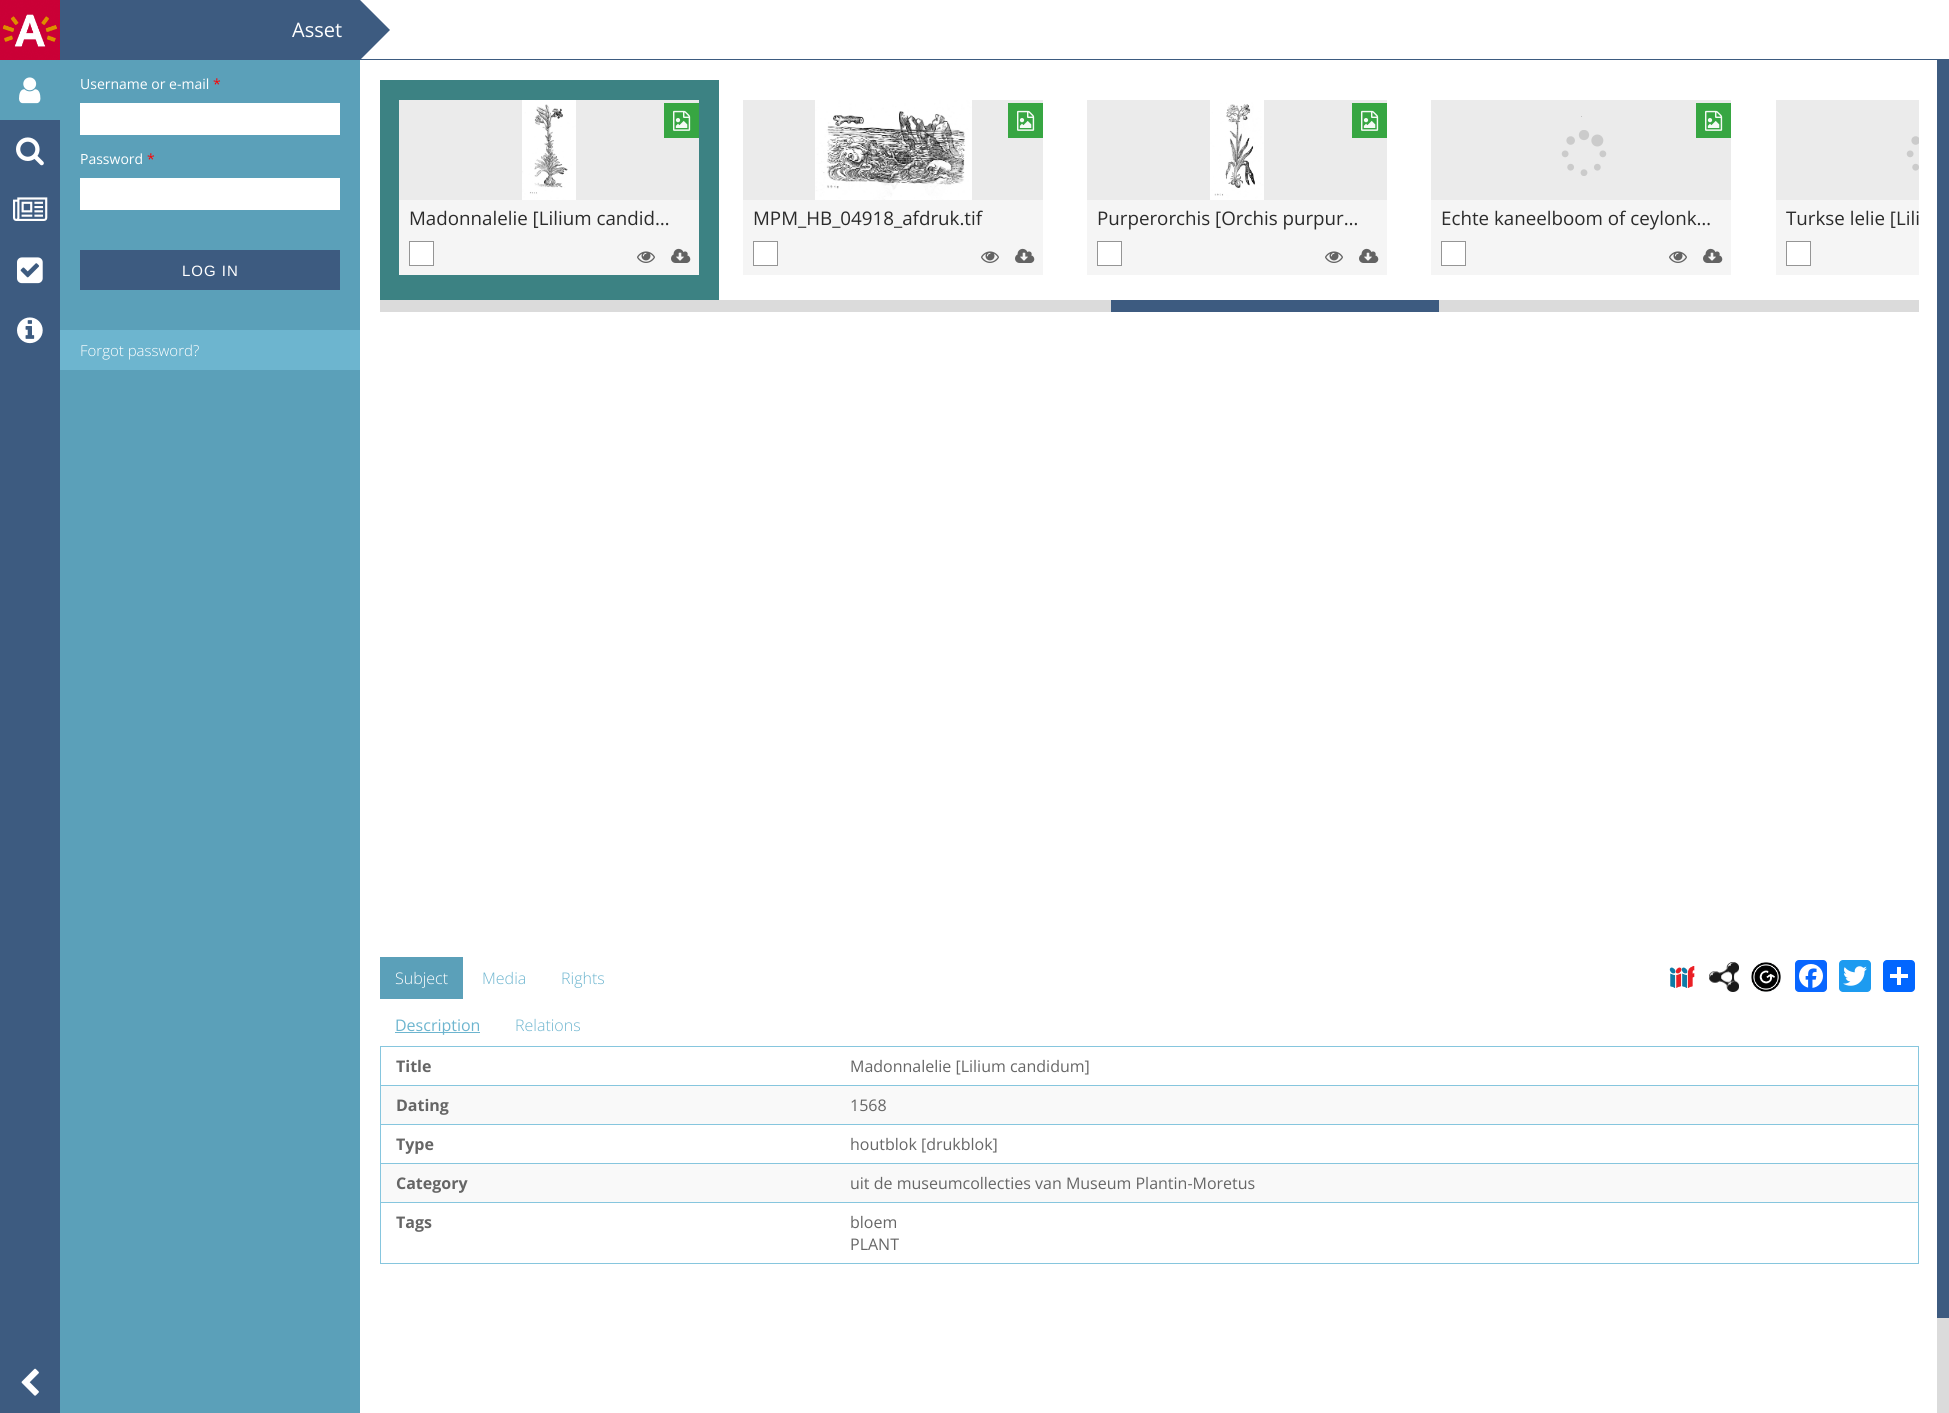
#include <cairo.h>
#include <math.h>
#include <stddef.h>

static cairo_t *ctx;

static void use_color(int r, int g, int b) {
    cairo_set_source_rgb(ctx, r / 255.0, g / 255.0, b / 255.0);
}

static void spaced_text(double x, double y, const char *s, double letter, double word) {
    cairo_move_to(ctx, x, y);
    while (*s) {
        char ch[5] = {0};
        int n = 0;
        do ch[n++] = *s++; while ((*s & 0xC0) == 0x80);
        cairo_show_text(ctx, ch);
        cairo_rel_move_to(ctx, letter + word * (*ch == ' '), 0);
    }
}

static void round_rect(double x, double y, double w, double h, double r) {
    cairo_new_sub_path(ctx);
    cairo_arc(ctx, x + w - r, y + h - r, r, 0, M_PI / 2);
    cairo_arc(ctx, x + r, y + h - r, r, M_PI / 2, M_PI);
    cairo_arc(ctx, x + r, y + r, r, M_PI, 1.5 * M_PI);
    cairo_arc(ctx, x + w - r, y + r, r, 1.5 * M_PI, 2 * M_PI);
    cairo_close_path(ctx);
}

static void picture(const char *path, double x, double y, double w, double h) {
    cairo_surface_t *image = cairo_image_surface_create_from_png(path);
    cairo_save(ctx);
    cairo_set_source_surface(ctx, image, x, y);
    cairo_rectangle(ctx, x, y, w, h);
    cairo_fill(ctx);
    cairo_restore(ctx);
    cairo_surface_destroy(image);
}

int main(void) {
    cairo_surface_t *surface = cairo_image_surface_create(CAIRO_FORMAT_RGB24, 1949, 1413);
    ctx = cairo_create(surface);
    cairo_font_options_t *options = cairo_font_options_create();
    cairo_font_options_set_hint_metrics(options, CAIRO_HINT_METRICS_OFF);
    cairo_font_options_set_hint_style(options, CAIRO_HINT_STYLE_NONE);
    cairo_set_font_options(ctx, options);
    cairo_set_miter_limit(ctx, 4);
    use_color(255, 255, 255);
    cairo_paint(ctx);
    use_color(61, 91, 128);
    cairo_rectangle(ctx, 0, 120, 60, 1293);
    cairo_fill(ctx);
    picture("img1.png", 0, 0, 60, 60);
    use_color(91, 160, 185);
    cairo_rectangle(ctx, 0, 60, 60, 60);
    cairo_fill(ctx);
    picture("img2.png", 19, 77, 22, 27);
    picture("img3.png", 16, 137, 28, 29);
    picture("img4.png", 13, 197, 35, 24);
    picture("img5.png", 17, 257, 26, 27);
    picture("img6.png", 17, 317, 26, 27);
    picture("img7.png", 21, 1368, 18, 28);
    use_color(61, 91, 128);
    cairo_rectangle(ctx, 60, 0, 300, 60);
    cairo_fill(ctx);
    cairo_select_font_face(ctx, "Open Sans", CAIRO_FONT_SLANT_NORMAL, CAIRO_FONT_WEIGHT_NORMAL);
    cairo_set_font_size(ctx, 20);
    use_color(255, 255, 255);
    cairo_move_to(ctx, 292, 37);
    cairo_show_text(ctx, "Asset");
    use_color(61, 91, 128);
    cairo_rectangle(ctx, 360, 59, 1589, 1);
    cairo_fill(ctx);
    cairo_new_path(ctx);
    cairo_move_to(ctx, 360, 60);
    cairo_line_to(ctx, 360, 0);
    cairo_line_to(ctx, 390, 30);
    cairo_close_path(ctx);
    cairo_fill(ctx);
    use_color(91, 160, 185);
    cairo_rectangle(ctx, 60, 60, 300, 1353);
    cairo_fill(ctx);
    cairo_set_font_size(ctx, 14);
    use_color(255, 255, 255);
    cairo_move_to(ctx, 80, 89);
    cairo_show_text(ctx, "Username or e-mail");
    use_color(255, 0, 0);
    cairo_move_to(ctx, 213, 89);
    cairo_show_text(ctx, "*");
    use_color(255, 255, 255);
    cairo_rectangle(ctx, 80, 103, 260, 32);
    cairo_fill(ctx);
    cairo_move_to(ctx, 80, 164);
    cairo_show_text(ctx, "Password");
    use_color(255, 0, 0);
    cairo_move_to(ctx, 147, 164);
    cairo_show_text(ctx, "*");
    use_color(255, 255, 255);
    cairo_rectangle(ctx, 80, 178, 260, 32);
    cairo_fill(ctx);
    use_color(61, 91, 128);
    cairo_rectangle(ctx, 80, 250, 260, 40);
    cairo_fill(ctx);
    cairo_select_font_face(ctx, "Liberation Sans", CAIRO_FONT_SLANT_NORMAL, CAIRO_FONT_WEIGHT_NORMAL);
    cairo_set_font_size(ctx, 15);
    use_color(255, 255, 255);
    spaced_text(182, 276, "LOG IN", 1, 0);
    use_color(109, 181, 207);
    cairo_rectangle(ctx, 60, 330, 300, 40);
    cairo_fill(ctx);
    cairo_select_font_face(ctx, "Open Sans Light", CAIRO_FONT_SLANT_NORMAL, CAIRO_FONT_WEIGHT_NORMAL);
    use_color(255, 255, 255);
    cairo_move_to(ctx, 80, 356);
    cairo_show_text(ctx, "Forgot password?");
    use_color(60, 130, 131);
    cairo_rectangle(ctx, 380, 80, 339, 220);
    cairo_fill(ctx);
    use_color(245, 245, 245);
    cairo_rectangle(ctx, 399, 200, 300, 75);
    cairo_fill(ctx);
    use_color(235, 235, 235);
    cairo_rectangle(ctx, 399, 100, 300, 100);
    cairo_fill(ctx);
    picture("img8.png", 522, 100, 54, 100);
    use_color(55, 166, 66);
    cairo_rectangle(ctx, 664, 103, 35, 35);
    cairo_fill(ctx);
    picture("img9.png", 673, 110, 18, 21);
    cairo_select_font_face(ctx, "Open Sans", CAIRO_FONT_SLANT_NORMAL, CAIRO_FONT_WEIGHT_NORMAL);
    cairo_set_font_size(ctx, 18.75);
    use_color(43, 43, 43);
    cairo_move_to(ctx, 409, 225);
    cairo_show_text(ctx, "Madonnalelie [Lilium candid…");
    use_color(255, 255, 255);
    cairo_rectangle(ctx, 409.5, 241.5, 24, 24);
    cairo_fill_preserve(ctx);
    use_color(149, 149, 149);
    cairo_set_line_width(ctx, 1);
    cairo_stroke(ctx);
    picture("img10.png", 637, 251, 18, 12);
    picture("img11.png", 671, 248, 20, 15);
    use_color(245, 245, 245);
    cairo_rectangle(ctx, 743, 200, 300, 75);
    cairo_fill(ctx);
    use_color(235, 235, 235);
    cairo_rectangle(ctx, 743, 100, 300, 100);
    cairo_fill(ctx);
    picture("img12.png", 815, 100, 157, 100);
    use_color(55, 166, 66);
    cairo_rectangle(ctx, 1008, 103, 35, 35);
    cairo_fill(ctx);
    picture("img9.png", 1017, 110, 18, 21);
    use_color(43, 43, 43);
    cairo_move_to(ctx, 753, 225);
    cairo_show_text(ctx, "MPM_HB_04918_afdruk.tif");
    use_color(255, 255, 255);
    cairo_rectangle(ctx, 753.5, 241.5, 24, 24);
    cairo_fill_preserve(ctx);
    use_color(149, 149, 149);
    cairo_stroke(ctx);
    picture("img10.png", 981, 251, 18, 12);
    picture("img11.png", 1015, 248, 20, 15);
    use_color(245, 245, 245);
    cairo_rectangle(ctx, 1087, 200, 300, 75);
    cairo_fill(ctx);
    use_color(235, 235, 235);
    cairo_rectangle(ctx, 1087, 100, 300, 100);
    cairo_fill(ctx);
    picture("img13.png", 1210, 100, 54, 100);
    use_color(55, 166, 66);
    cairo_rectangle(ctx, 1352, 103, 35, 35);
    cairo_fill(ctx);
    picture("img9.png", 1361, 110, 18, 21);
    use_color(43, 43, 43);
    cairo_move_to(ctx, 1097, 225);
    cairo_show_text(ctx, "Purperorchis [Orchis purpur…");
    use_color(255, 255, 255);
    cairo_rectangle(ctx, 1097.5, 241.5, 24, 24);
    cairo_fill_preserve(ctx);
    use_color(149, 149, 149);
    cairo_stroke(ctx);
    picture("img10.png", 1325, 251, 18, 12);
    picture("img11.png", 1359, 248, 20, 15);
    use_color(245, 245, 245);
    cairo_rectangle(ctx, 1431, 200, 300, 75);
    cairo_fill(ctx);
    use_color(235, 235, 235);
    cairo_rectangle(ctx, 1431, 100, 300, 100);
    cairo_fill(ctx);
    use_color(195, 195, 195);
    cairo_rectangle(ctx, 1581, 116, 1, 1);
    cairo_fill(ctx);
    picture("img14.png", 1561, 130, 46, 46);
    use_color(55, 166, 66);
    cairo_rectangle(ctx, 1696, 103, 35, 35);
    cairo_fill(ctx);
    picture("img9.png", 1705, 110, 18, 21);
    use_color(43, 43, 43);
    cairo_move_to(ctx, 1441, 225);
    cairo_show_text(ctx, "Echte kaneelboom of ceylonk…");
    use_color(255, 255, 255);
    cairo_rectangle(ctx, 1441.5, 241.5, 24, 24);
    cairo_fill_preserve(ctx);
    use_color(149, 149, 149);
    cairo_stroke(ctx);
    picture("img10.png", 1669, 251, 18, 12);
    picture("img11.png", 1703, 248, 20, 15);
    use_color(245, 245, 245);
    cairo_rectangle(ctx, 1776, 200, 143, 75);
    cairo_fill(ctx);
    use_color(235, 235, 235);
    cairo_rectangle(ctx, 1776, 100, 143, 100);
    cairo_fill(ctx);
    picture("img15.png", 1906, 136, 13, 35);
    use_color(43, 43, 43);
    cairo_move_to(ctx, 1786, 225);
    cairo_show_text(ctx, "Turkse lelie [Lili");
    use_color(255, 255, 255);
    cairo_rectangle(ctx, 1786.5, 241.5, 24, 24);
    cairo_fill_preserve(ctx);
    use_color(149, 149, 149);
    cairo_stroke(ctx);
    use_color(219, 219, 219);
    cairo_rectangle(ctx, 380, 300, 1539, 12);
    cairo_fill(ctx);
    use_color(61, 91, 128);
    cairo_rectangle(ctx, 1111, 300, 328, 12);
    cairo_fill(ctx);
    use_color(91, 160, 185);
    cairo_rectangle(ctx, 380, 957, 83, 42);
    cairo_fill(ctx);
    cairo_select_font_face(ctx, "Open Sans Light", CAIRO_FONT_SLANT_NORMAL, CAIRO_FONT_WEIGHT_NORMAL);
    cairo_set_font_size(ctx, 16);
    use_color(255, 255, 255);
    cairo_move_to(ctx, 395, 984);
    cairo_show_text(ctx, "Subject");
    use_color(109, 181, 207);
    cairo_move_to(ctx, 482, 984);
    cairo_show_text(ctx, "Media");
    cairo_move_to(ctx, 561, 984);
    cairo_show_text(ctx, "Rights");
    picture("img16.png", 1669, 966, 26, 22);
    picture("img17.png", 1709, 962, 30, 30);
    picture("img18.png", 1751, 962, 30, 30);
    use_color(8, 102, 255);
    round_rect(1795, 960, 32, 32, 4);
    cairo_fill(ctx);
    picture("img19.png", 1799, 964, 24, 24);
    use_color(29, 155, 240);
    round_rect(1839, 960, 32, 32, 4);
    cairo_fill(ctx);
    picture("img20.png", 1843, 966, 24, 20);
    use_color(1, 102, 255);
    round_rect(1883, 960, 32, 32, 4);
    cairo_fill(ctx);
    use_color(255, 255, 255);
    cairo_rectangle(ctx, 1897, 967, 4, 18);
    cairo_fill(ctx);
    cairo_rectangle(ctx, 1890, 974, 18, 4);
    cairo_fill(ctx);
    use_color(109, 181, 207);
    cairo_rectangle(ctx, 395, 1032, 85, 1);
    cairo_fill(ctx);
    cairo_select_font_face(ctx, "Open Sans", CAIRO_FONT_SLANT_NORMAL, CAIRO_FONT_WEIGHT_NORMAL);
    cairo_move_to(ctx, 395, 1031);
    cairo_show_text(ctx, "Description");
    cairo_select_font_face(ctx, "Open Sans Light", CAIRO_FONT_SLANT_NORMAL, CAIRO_FONT_WEIGHT_NORMAL);
    cairo_move_to(ctx, 515, 1031);
    cairo_show_text(ctx, "Relations");
    use_color(134, 198, 222);
    cairo_rectangle(ctx, 380, 1046, 1539, 1);
    cairo_fill(ctx);
    cairo_rectangle(ctx, 1918, 1046, 1, 218);
    cairo_fill(ctx);
    cairo_rectangle(ctx, 380, 1263, 1539, 1);
    cairo_fill(ctx);
    cairo_rectangle(ctx, 380, 1046, 1, 218);
    cairo_fill(ctx);
    cairo_rectangle(ctx, 380, 1085, 1539, 1);
    cairo_fill(ctx);
    cairo_select_font_face(ctx, "Open Sans", CAIRO_FONT_SLANT_NORMAL, CAIRO_FONT_WEIGHT_BOLD);
    use_color(102, 102, 102);
    cairo_move_to(ctx, 396, 1072);
    cairo_show_text(ctx, "Title");
    cairo_select_font_face(ctx, "Open Sans", CAIRO_FONT_SLANT_NORMAL, CAIRO_FONT_WEIGHT_NORMAL);
    cairo_move_to(ctx, 850, 1072);
    cairo_show_text(ctx, "Madonnalelie [Lilium candidum]");
    use_color(134, 198, 222);
    cairo_rectangle(ctx, 380, 1124, 1539, 1);
    cairo_fill(ctx);
    use_color(249, 249, 249);
    cairo_rectangle(ctx, 381, 1086, 1537, 38);
    cairo_fill(ctx);
    cairo_select_font_face(ctx, "Open Sans", CAIRO_FONT_SLANT_NORMAL, CAIRO_FONT_WEIGHT_BOLD);
    use_color(102, 102, 102);
    cairo_move_to(ctx, 396, 1111);
    cairo_show_text(ctx, "Dating");
    cairo_select_font_face(ctx, "Open Sans", CAIRO_FONT_SLANT_NORMAL, CAIRO_FONT_WEIGHT_NORMAL);
    cairo_move_to(ctx, 850, 1111);
    cairo_show_text(ctx, "1568");
    use_color(134, 198, 222);
    cairo_rectangle(ctx, 380, 1163, 1539, 1);
    cairo_fill(ctx);
    cairo_select_font_face(ctx, "Open Sans", CAIRO_FONT_SLANT_NORMAL, CAIRO_FONT_WEIGHT_BOLD);
    use_color(102, 102, 102);
    cairo_move_to(ctx, 396, 1150);
    cairo_show_text(ctx, "Type");
    cairo_select_font_face(ctx, "Open Sans", CAIRO_FONT_SLANT_NORMAL, CAIRO_FONT_WEIGHT_NORMAL);
    cairo_move_to(ctx, 850, 1150);
    cairo_show_text(ctx, "houtblok [drukblok]");
    use_color(134, 198, 222);
    cairo_rectangle(ctx, 380, 1202, 1539, 1);
    cairo_fill(ctx);
    use_color(249, 249, 249);
    cairo_rectangle(ctx, 381, 1164, 1537, 38);
    cairo_fill(ctx);
    cairo_select_font_face(ctx, "Open Sans", CAIRO_FONT_SLANT_NORMAL, CAIRO_FONT_WEIGHT_BOLD);
    use_color(102, 102, 102);
    cairo_move_to(ctx, 396, 1189);
    cairo_show_text(ctx, "Category");
    cairo_select_font_face(ctx, "Open Sans", CAIRO_FONT_SLANT_NORMAL, CAIRO_FONT_WEIGHT_NORMAL);
    cairo_move_to(ctx, 850, 1189);
    cairo_show_text(ctx, "uit de museumcollecties van Museum Plantin-Moretus");
    cairo_select_font_face(ctx, "Open Sans", CAIRO_FONT_SLANT_NORMAL, CAIRO_FONT_WEIGHT_BOLD);
    cairo_move_to(ctx, 396, 1228);
    cairo_show_text(ctx, "Tags");
    cairo_select_font_face(ctx, "Open Sans", CAIRO_FONT_SLANT_NORMAL, CAIRO_FONT_WEIGHT_NORMAL);
    cairo_move_to(ctx, 850, 1228);
    cairo_show_text(ctx, "bloem");
    cairo_move_to(ctx, 850, 1250);
    cairo_show_text(ctx, "PLANT");
    use_color(219, 219, 219);
    cairo_rectangle(ctx, 1937, 1318, 12, 95);
    cairo_fill(ctx);
    use_color(61, 91, 128);
    cairo_rectangle(ctx, 1937, 60, 12, 1258);
    cairo_fill(ctx);
    cairo_surface_write_to_png(surface, "result.png");
    cairo_font_options_destroy(options);
    cairo_destroy(ctx);
    cairo_surface_destroy(surface);
    return 0;
}
